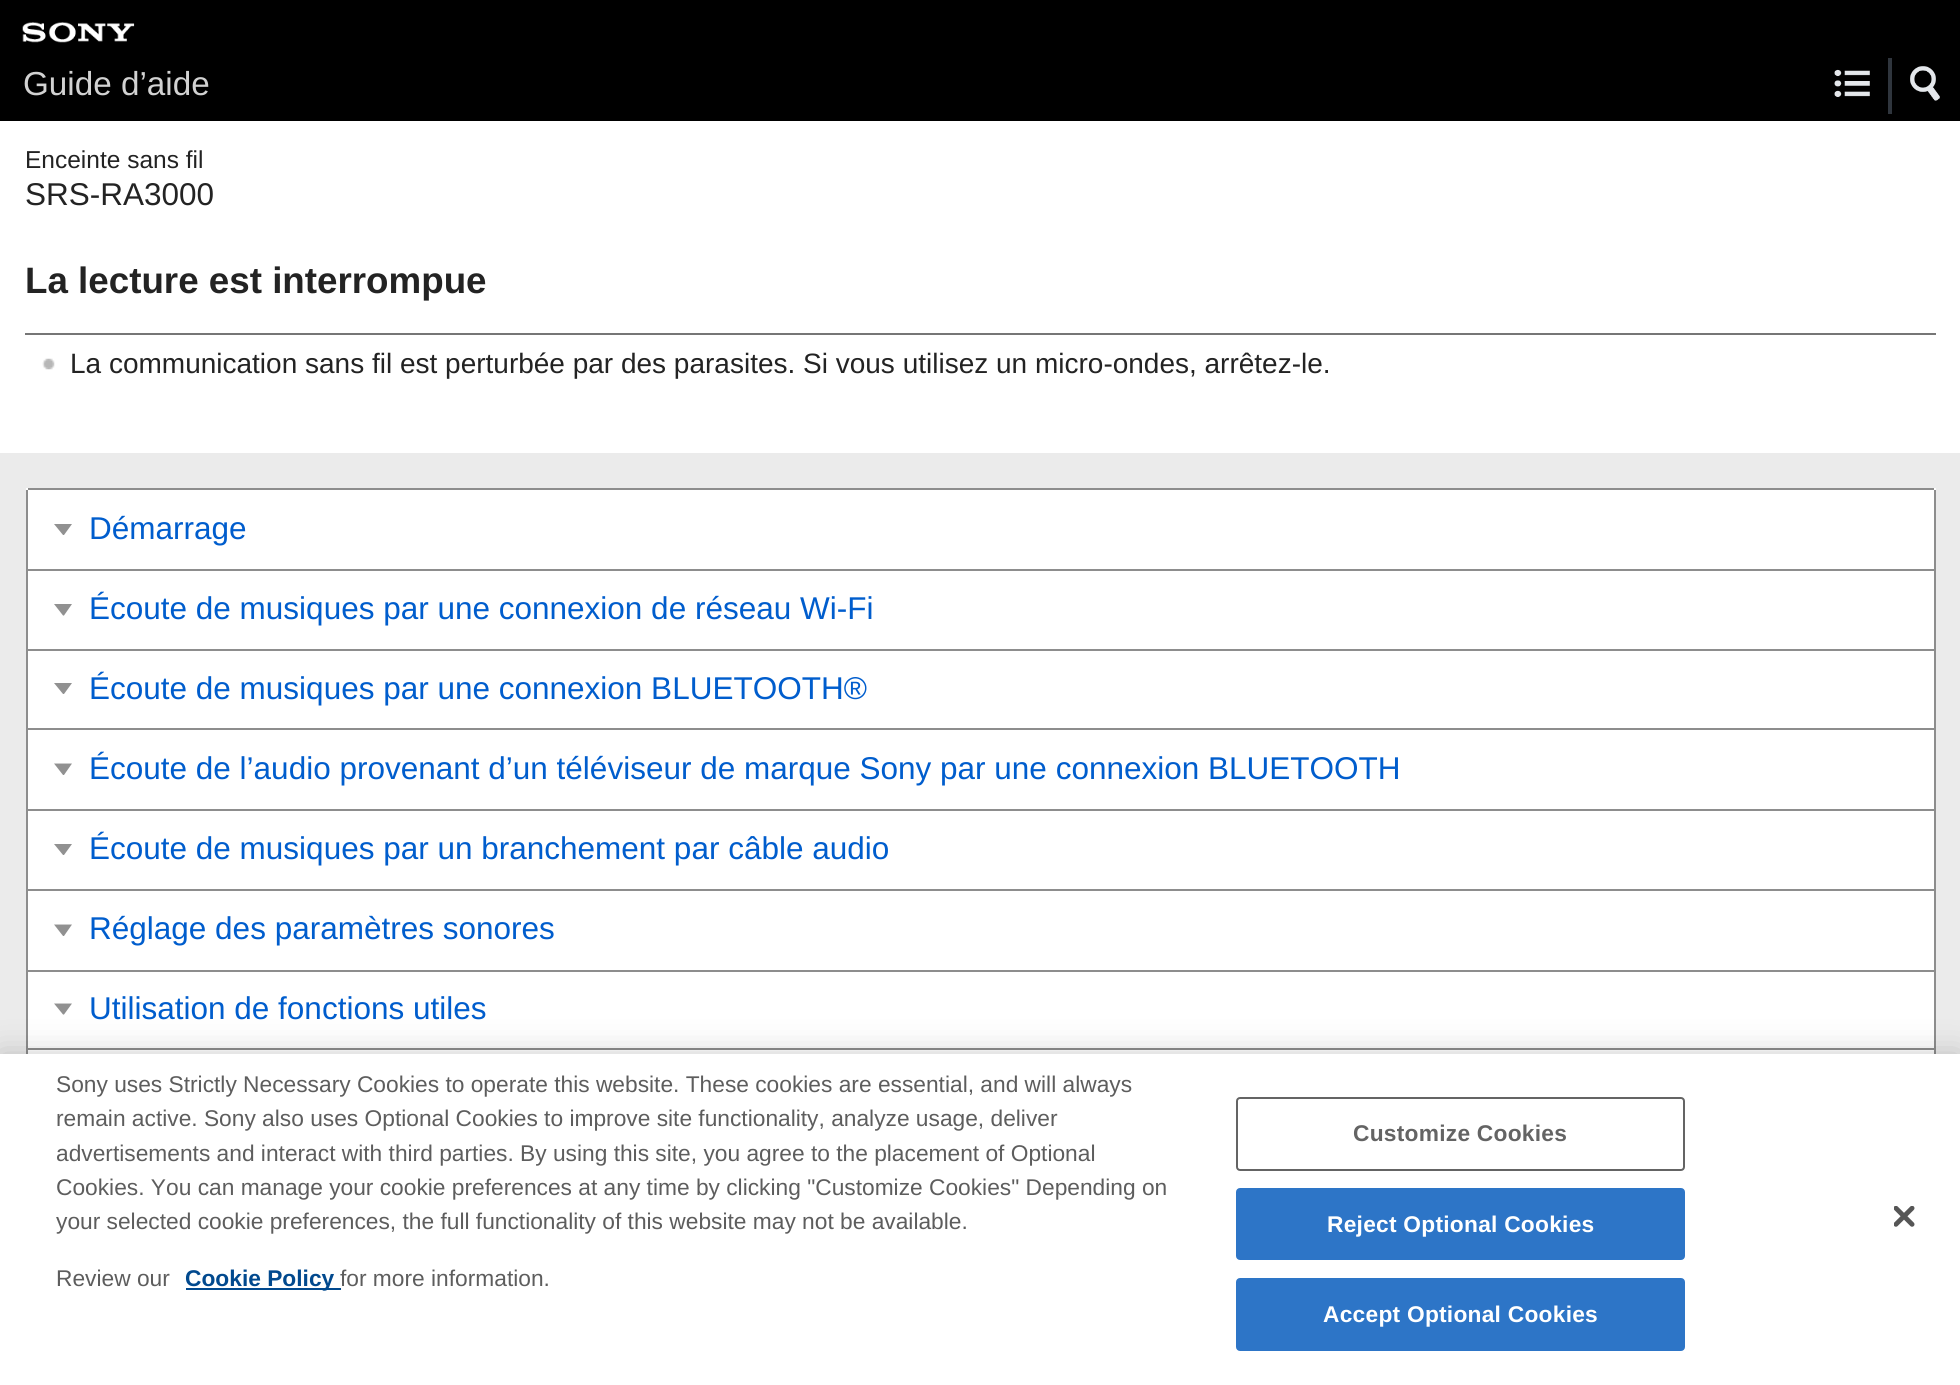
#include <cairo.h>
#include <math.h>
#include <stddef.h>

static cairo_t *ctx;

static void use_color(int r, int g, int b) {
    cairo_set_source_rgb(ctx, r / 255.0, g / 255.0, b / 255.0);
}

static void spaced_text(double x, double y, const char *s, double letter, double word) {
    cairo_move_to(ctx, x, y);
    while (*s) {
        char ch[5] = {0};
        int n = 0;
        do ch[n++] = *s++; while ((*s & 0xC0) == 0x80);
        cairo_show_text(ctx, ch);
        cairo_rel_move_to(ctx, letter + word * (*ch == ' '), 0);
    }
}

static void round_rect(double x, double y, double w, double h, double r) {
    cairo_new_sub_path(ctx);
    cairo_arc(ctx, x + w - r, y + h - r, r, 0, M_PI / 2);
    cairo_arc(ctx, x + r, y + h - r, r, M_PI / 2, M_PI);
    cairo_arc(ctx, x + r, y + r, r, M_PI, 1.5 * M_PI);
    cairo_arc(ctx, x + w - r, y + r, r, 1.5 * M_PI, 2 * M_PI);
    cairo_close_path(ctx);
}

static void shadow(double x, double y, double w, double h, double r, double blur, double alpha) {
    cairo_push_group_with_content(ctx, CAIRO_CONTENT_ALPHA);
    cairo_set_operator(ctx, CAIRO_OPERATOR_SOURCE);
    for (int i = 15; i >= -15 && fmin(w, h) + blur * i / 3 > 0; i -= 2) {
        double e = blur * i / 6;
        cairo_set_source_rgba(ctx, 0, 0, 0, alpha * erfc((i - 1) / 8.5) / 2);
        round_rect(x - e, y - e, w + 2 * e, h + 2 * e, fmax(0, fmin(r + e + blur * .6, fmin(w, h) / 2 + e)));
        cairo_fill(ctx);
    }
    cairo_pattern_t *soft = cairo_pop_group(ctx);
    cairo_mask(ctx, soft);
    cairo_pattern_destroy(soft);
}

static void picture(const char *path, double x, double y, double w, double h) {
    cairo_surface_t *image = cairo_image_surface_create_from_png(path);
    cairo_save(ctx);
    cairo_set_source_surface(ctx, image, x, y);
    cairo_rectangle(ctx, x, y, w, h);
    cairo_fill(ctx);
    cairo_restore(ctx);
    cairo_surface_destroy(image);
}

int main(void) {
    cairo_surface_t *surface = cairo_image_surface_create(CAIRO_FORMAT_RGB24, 1960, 1385);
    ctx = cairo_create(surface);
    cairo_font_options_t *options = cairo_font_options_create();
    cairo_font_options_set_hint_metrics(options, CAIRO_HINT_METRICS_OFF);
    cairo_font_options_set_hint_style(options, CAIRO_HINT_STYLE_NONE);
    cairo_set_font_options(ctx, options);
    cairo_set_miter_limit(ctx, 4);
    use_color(255, 255, 255);
    cairo_paint(ctx);
    use_color(0, 0, 0);
    cairo_rectangle(ctx, 0, 0, 1960, 121);
    cairo_fill(ctx);
    picture("img1.png", 22, 22, 113, 21);
    cairo_select_font_face(ctx, "Liberation Sans", CAIRO_FONT_SLANT_NORMAL, CAIRO_FONT_WEIGHT_NORMAL);
    cairo_set_font_size(ctx, 33.25);
    use_color(210, 210, 210);
    cairo_move_to(ctx, 23, 95);
    cairo_show_text(ctx, "Guide d’aide");
    cairo_set_font_size(ctx, 24.5);
    use_color(35, 35, 35);
    cairo_move_to(ctx, 25, 168);
    cairo_show_text(ctx, "Enceinte sans fil");
    cairo_set_font_size(ctx, 31.5);
    cairo_move_to(ctx, 25, 205);
    cairo_show_text(ctx, "SRS-RA3000");
    use_color(47, 53, 61);
    cairo_rectangle(ctx, 1888, 58, 4, 56);
    cairo_fill(ctx);
    picture("img2.png", 1834, 69, 36, 28);
    picture("img3.png", 1910, 66, 30, 35);
    use_color(118, 118, 118);
    cairo_rectangle(ctx, 25, 333, 1911, 2);
    cairo_fill(ctx);
    cairo_select_font_face(ctx, "Liberation Sans", CAIRO_FONT_SLANT_NORMAL, CAIRO_FONT_WEIGHT_BOLD);
    cairo_set_font_size(ctx, 36.75);
    use_color(35, 35, 35);
    cairo_move_to(ctx, 25, 293);
    cairo_show_text(ctx, "La lecture est interrompue");
    picture("img4.png", 42, 358, 13, 12);
    cairo_select_font_face(ctx, "Liberation Sans", CAIRO_FONT_SLANT_NORMAL, CAIRO_FONT_WEIGHT_NORMAL);
    cairo_set_font_size(ctx, 28);
    cairo_move_to(ctx, 70, 373);
    cairo_show_text(ctx, "La communication sans fil est perturbée par des parasites. Si vous utilisez un micro-ondes, arrêtez-le.");
    use_color(235, 235, 235);
    cairo_rectangle(ctx, 0, 453, 1960, 601);
    cairo_fill(ctx);
    use_color(255, 255, 255);
    cairo_rectangle(ctx, 26, 488, 1910, 566);
    cairo_fill(ctx);
    use_color(141, 141, 141);
    cairo_rectangle(ctx, 28, 488, 1906, 2);
    cairo_fill(ctx);
    cairo_rectangle(ctx, 1934, 490, 2, 79);
    cairo_fill(ctx);
    cairo_rectangle(ctx, 26, 490, 2, 79);
    cairo_fill(ctx);
    use_color(145, 145, 145);
    cairo_new_path(ctx);
    cairo_move_to(ctx, 54, 524);
    cairo_line_to(ctx, 63, 535);
    cairo_line_to(ctx, 64, 535);
    cairo_line_to(ctx, 72, 524);
    cairo_close_path(ctx);
    cairo_fill(ctx);
    cairo_set_font_size(ctx, 31.5);
    use_color(0, 93, 205);
    cairo_move_to(ctx, 89, 539);
    cairo_show_text(ctx, "Démarrage");
    use_color(141, 141, 141);
    cairo_rectangle(ctx, 26, 569, 1910, 2);
    cairo_fill(ctx);
    cairo_rectangle(ctx, 1934, 569, 2, 80);
    cairo_fill(ctx);
    cairo_rectangle(ctx, 26, 569, 2, 80);
    cairo_fill(ctx);
    use_color(145, 145, 145);
    cairo_new_path(ctx);
    cairo_move_to(ctx, 54, 604);
    cairo_line_to(ctx, 63, 615.5);
    cairo_line_to(ctx, 64, 615.5);
    cairo_line_to(ctx, 72, 604);
    cairo_close_path(ctx);
    cairo_fill(ctx);
    use_color(0, 93, 205);
    cairo_move_to(ctx, 89, 619);
    cairo_show_text(ctx, "Écoute de musiques par une connexion de réseau Wi-Fi");
    use_color(141, 141, 141);
    cairo_rectangle(ctx, 26, 649, 1910, 2);
    cairo_fill(ctx);
    cairo_rectangle(ctx, 1934, 649, 2, 79);
    cairo_fill(ctx);
    cairo_rectangle(ctx, 26, 649, 2, 79);
    cairo_fill(ctx);
    use_color(145, 145, 145);
    cairo_new_path(ctx);
    cairo_move_to(ctx, 54, 683);
    cairo_line_to(ctx, 63, 694);
    cairo_line_to(ctx, 64, 694);
    cairo_line_to(ctx, 72, 683);
    cairo_close_path(ctx);
    cairo_fill(ctx);
    use_color(0, 93, 205);
    cairo_move_to(ctx, 89, 699);
    cairo_show_text(ctx, "Écoute de musiques par une connexion BLUETOOTH®");
    use_color(141, 141, 141);
    cairo_rectangle(ctx, 26, 728, 1910, 2);
    cairo_fill(ctx);
    cairo_rectangle(ctx, 1934, 728, 2, 81);
    cairo_fill(ctx);
    cairo_rectangle(ctx, 26, 728, 2, 81);
    cairo_fill(ctx);
    use_color(145, 145, 145);
    cairo_new_path(ctx);
    cairo_move_to(ctx, 54, 763.5);
    cairo_line_to(ctx, 63, 775);
    cairo_line_to(ctx, 64, 775);
    cairo_line_to(ctx, 72, 763.5);
    cairo_close_path(ctx);
    cairo_fill(ctx);
    use_color(0, 93, 205);
    cairo_move_to(ctx, 89, 779);
    cairo_show_text(ctx, "Écoute de l’audio provenant d’un téléviseur de marque Sony par une connexion BLUETOOTH");
    use_color(141, 141, 141);
    cairo_rectangle(ctx, 26, 809, 1910, 2);
    cairo_fill(ctx);
    cairo_rectangle(ctx, 1934, 809, 2, 80);
    cairo_fill(ctx);
    cairo_rectangle(ctx, 26, 809, 2, 80);
    cairo_fill(ctx);
    use_color(145, 145, 145);
    cairo_new_path(ctx);
    cairo_move_to(ctx, 54, 844);
    cairo_line_to(ctx, 63, 855);
    cairo_line_to(ctx, 64, 855);
    cairo_line_to(ctx, 72, 844);
    cairo_close_path(ctx);
    cairo_fill(ctx);
    use_color(0, 93, 205);
    cairo_move_to(ctx, 89, 859);
    cairo_show_text(ctx, "Écoute de musiques par un branchement par câble audio");
    use_color(141, 141, 141);
    cairo_rectangle(ctx, 26, 889, 1910, 2);
    cairo_fill(ctx);
    cairo_rectangle(ctx, 1934, 889, 2, 81);
    cairo_fill(ctx);
    cairo_rectangle(ctx, 26, 889, 2, 81);
    cairo_fill(ctx);
    use_color(145, 145, 145);
    cairo_new_path(ctx);
    cairo_move_to(ctx, 54, 924.5);
    cairo_line_to(ctx, 63, 936);
    cairo_line_to(ctx, 64, 936);
    cairo_line_to(ctx, 72, 924.5);
    cairo_close_path(ctx);
    cairo_fill(ctx);
    use_color(0, 93, 205);
    cairo_move_to(ctx, 89, 939);
    cairo_show_text(ctx, "Réglage des paramètres sonores");
    use_color(141, 141, 141);
    cairo_rectangle(ctx, 26, 970, 1910, 2);
    cairo_fill(ctx);
    cairo_rectangle(ctx, 1934, 970, 2, 78);
    cairo_fill(ctx);
    cairo_rectangle(ctx, 26, 970, 2, 78);
    cairo_fill(ctx);
    use_color(145, 145, 145);
    cairo_new_path(ctx);
    cairo_move_to(ctx, 54, 1003.5);
    cairo_line_to(ctx, 63, 1014.5);
    cairo_line_to(ctx, 64, 1014.5);
    cairo_line_to(ctx, 72, 1003.5);
    cairo_close_path(ctx);
    cairo_fill(ctx);
    use_color(0, 93, 205);
    cairo_move_to(ctx, 89, 1019);
    cairo_show_text(ctx, "Utilisation de fonctions utiles");
    use_color(141, 141, 141);
    cairo_rectangle(ctx, 26, 1048, 1910, 2);
    cairo_fill(ctx);
    cairo_rectangle(ctx, 1934, 1048, 2, 6);
    cairo_fill(ctx);
    cairo_rectangle(ctx, 26, 1048, 2, 6);
    cairo_fill(ctx);
    use_color(0, 0, 0);
    shadow(0, 1054, 1960, 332, 0, 16, 0.2);
    use_color(255, 255, 255);
    cairo_rectangle(ctx, 0, 1054, 1960, 331);
    cairo_fill(ctx);
    cairo_set_font_size(ctx, 22.75);
    use_color(93, 93, 93);
    cairo_move_to(ctx, 56, 1092);
    cairo_show_text(ctx, "Sony uses Strictly Necessary Cookies to operate this website. These cookies are essential, and will always");
    cairo_move_to(ctx, 56, 1126);
    cairo_show_text(ctx, "remain active. Sony also uses Optional Cookies to improve site functionality, analyze usage, deliver");
    cairo_move_to(ctx, 56, 1161);
    cairo_show_text(ctx, "advertisements and interact with third parties. By using this site, you agree to the placement of Optional");
    cairo_move_to(ctx, 56, 1195);
    cairo_show_text(ctx, "Cookies. You can manage your cookie preferences at any time by clicking \"Customize Cookies\" Depending on");
    cairo_move_to(ctx, 56, 1229);
    cairo_show_text(ctx, "your selected cookie preferences, the full functionality of this website may not be available.");
    cairo_move_to(ctx, 56, 1286);
    cairo_show_text(ctx, "Review our");
    use_color(1, 73, 142);
    cairo_rectangle(ctx, 186, 1288, 155, 2);
    cairo_fill(ctx);
    cairo_select_font_face(ctx, "Liberation Sans", CAIRO_FONT_SLANT_NORMAL, CAIRO_FONT_WEIGHT_BOLD);
    cairo_move_to(ctx, 185, 1286);
    cairo_show_text(ctx, "Cookie Policy");
    cairo_select_font_face(ctx, "Liberation Sans", CAIRO_FONT_SLANT_NORMAL, CAIRO_FONT_WEIGHT_NORMAL);
    use_color(93, 93, 93);
    cairo_move_to(ctx, 340, 1286);
    cairo_show_text(ctx, "for more information.");
    round_rect(1237, 1098, 447, 72, 3);
    use_color(100, 100, 100);
    cairo_stroke(ctx);
    cairo_select_font_face(ctx, "Liberation Sans", CAIRO_FONT_SLANT_NORMAL, CAIRO_FONT_WEIGHT_BOLD);
    spaced_text(1353, 1141, "Customize Cookies", 0.25, 0);
    use_color(45, 117, 199);
    round_rect(1237, 1189, 447, 70, 3);
    cairo_fill_preserve(ctx);
    cairo_stroke(ctx);
    use_color(255, 255, 255);
    spaced_text(1327, 1232, "Reject Optional Cookies", 0.25, 0);
    use_color(45, 117, 199);
    round_rect(1237, 1279, 447, 71, 3);
    cairo_fill_preserve(ctx);
    cairo_stroke(ctx);
    use_color(255, 255, 255);
    spaced_text(1323, 1322, "Accept Optional Cookies", 0.25, 0);
    picture("img5.png", 1894, 1206, 21, 21);
    cairo_surface_write_to_png(surface, "result.png");
    cairo_font_options_destroy(options);
    cairo_destroy(ctx);
    cairo_surface_destroy(surface);
    return 0;
}
